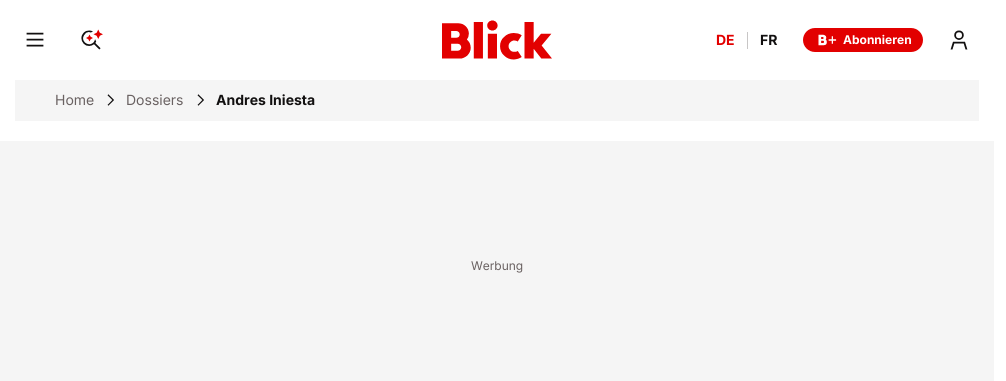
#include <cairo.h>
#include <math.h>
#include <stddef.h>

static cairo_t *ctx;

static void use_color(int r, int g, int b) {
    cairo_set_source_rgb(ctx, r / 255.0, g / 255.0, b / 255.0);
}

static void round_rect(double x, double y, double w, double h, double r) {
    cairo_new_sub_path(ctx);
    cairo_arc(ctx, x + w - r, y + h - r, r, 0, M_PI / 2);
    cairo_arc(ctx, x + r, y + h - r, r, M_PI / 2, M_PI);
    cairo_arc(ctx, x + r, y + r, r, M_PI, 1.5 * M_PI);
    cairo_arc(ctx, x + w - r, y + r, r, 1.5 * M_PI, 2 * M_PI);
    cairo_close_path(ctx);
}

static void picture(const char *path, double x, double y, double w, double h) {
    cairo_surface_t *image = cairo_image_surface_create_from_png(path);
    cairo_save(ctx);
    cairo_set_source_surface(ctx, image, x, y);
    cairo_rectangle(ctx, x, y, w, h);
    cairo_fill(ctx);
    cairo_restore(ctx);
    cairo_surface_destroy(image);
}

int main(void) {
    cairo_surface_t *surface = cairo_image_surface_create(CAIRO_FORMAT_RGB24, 1006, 381);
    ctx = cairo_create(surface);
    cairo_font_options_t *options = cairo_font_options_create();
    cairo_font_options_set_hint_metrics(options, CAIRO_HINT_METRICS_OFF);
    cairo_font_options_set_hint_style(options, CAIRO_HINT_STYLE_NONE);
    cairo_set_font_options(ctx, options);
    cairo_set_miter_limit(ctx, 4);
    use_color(255, 255, 255);
    cairo_paint(ctx);
    picture("img1.png", 26, 32, 18, 15);
    picture("img2.png", 81, 29, 22, 21);
    picture("img3.png", 442, 20, 110, 40);
    cairo_select_font_face(ctx, "Inter", CAIRO_FONT_SLANT_NORMAL, CAIRO_FONT_WEIGHT_BOLD);
    cairo_set_font_size(ctx, 14);
    use_color(226, 0, 0);
    cairo_move_to(ctx, 716, 45);
    cairo_show_text(ctx, "DE");
    use_color(200, 198, 198);
    cairo_rectangle(ctx, 747, 32, 1, 17);
    cairo_fill(ctx);
    use_color(18, 16, 16);
    cairo_move_to(ctx, 760, 45);
    cairo_show_text(ctx, "FR");
    use_color(226, 0, 0);
    round_rect(803, 28, 120, 24, 12);
    cairo_fill(ctx);
    picture("img4.png", 818, 34, 19, 12);
    cairo_set_font_size(ctx, 12);
    use_color(255, 255, 255);
    cairo_move_to(ctx, 843, 44);
    cairo_show_text(ctx, "Abonnieren");
    picture("img5.png", 950, 30, 18, 20);
    use_color(245, 245, 245);
    cairo_rectangle(ctx, 15, 80, 964, 41);
    cairo_fill(ctx);
    cairo_select_font_face(ctx, "Inter", CAIRO_FONT_SLANT_NORMAL, CAIRO_FONT_WEIGHT_NORMAL);
    cairo_set_font_size(ctx, 14);
    use_color(106, 98, 98);
    cairo_move_to(ctx, 55, 105);
    cairo_show_text(ctx, "Home");
    picture("img6.png", 107, 94, 7, 12);
    cairo_move_to(ctx, 126, 105);
    cairo_show_text(ctx, "Dossiers");
    picture("img6.png", 197, 94, 7, 12);
    cairo_select_font_face(ctx, "Inter", CAIRO_FONT_SLANT_NORMAL, CAIRO_FONT_WEIGHT_BOLD);
    use_color(18, 16, 16);
    cairo_move_to(ctx, 216, 105);
    cairo_show_text(ctx, "Andres Iniesta");
    use_color(245, 245, 245);
    cairo_rectangle(ctx, 0, 141, 994, 240);
    cairo_fill(ctx);
    cairo_select_font_face(ctx, "Inter", CAIRO_FONT_SLANT_NORMAL, CAIRO_FONT_WEIGHT_NORMAL);
    cairo_set_font_size(ctx, 12);
    use_color(106, 98, 98);
    cairo_move_to(ctx, 471, 270);
    cairo_show_text(ctx, "Werbung");
    cairo_surface_write_to_png(surface, "result.png");
    cairo_font_options_destroy(options);
    cairo_destroy(ctx);
    cairo_surface_destroy(surface);
    return 0;
}
